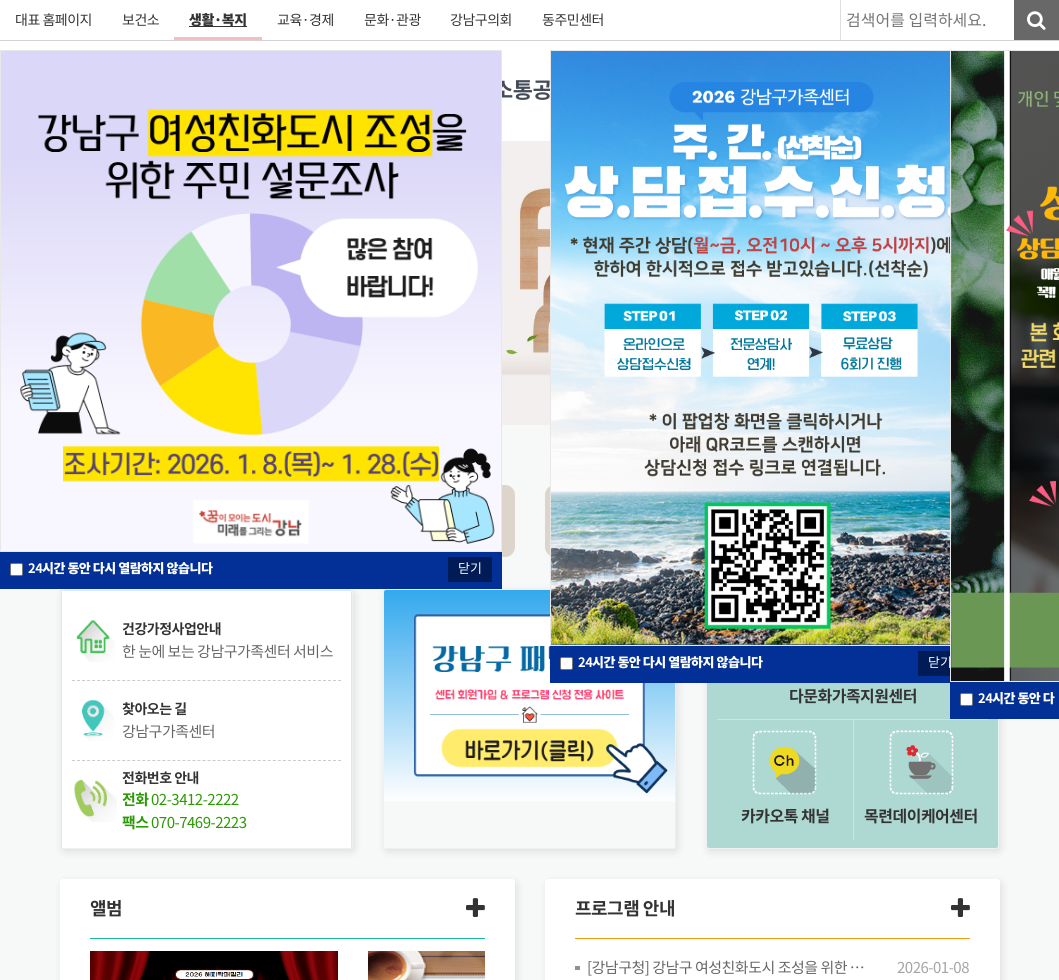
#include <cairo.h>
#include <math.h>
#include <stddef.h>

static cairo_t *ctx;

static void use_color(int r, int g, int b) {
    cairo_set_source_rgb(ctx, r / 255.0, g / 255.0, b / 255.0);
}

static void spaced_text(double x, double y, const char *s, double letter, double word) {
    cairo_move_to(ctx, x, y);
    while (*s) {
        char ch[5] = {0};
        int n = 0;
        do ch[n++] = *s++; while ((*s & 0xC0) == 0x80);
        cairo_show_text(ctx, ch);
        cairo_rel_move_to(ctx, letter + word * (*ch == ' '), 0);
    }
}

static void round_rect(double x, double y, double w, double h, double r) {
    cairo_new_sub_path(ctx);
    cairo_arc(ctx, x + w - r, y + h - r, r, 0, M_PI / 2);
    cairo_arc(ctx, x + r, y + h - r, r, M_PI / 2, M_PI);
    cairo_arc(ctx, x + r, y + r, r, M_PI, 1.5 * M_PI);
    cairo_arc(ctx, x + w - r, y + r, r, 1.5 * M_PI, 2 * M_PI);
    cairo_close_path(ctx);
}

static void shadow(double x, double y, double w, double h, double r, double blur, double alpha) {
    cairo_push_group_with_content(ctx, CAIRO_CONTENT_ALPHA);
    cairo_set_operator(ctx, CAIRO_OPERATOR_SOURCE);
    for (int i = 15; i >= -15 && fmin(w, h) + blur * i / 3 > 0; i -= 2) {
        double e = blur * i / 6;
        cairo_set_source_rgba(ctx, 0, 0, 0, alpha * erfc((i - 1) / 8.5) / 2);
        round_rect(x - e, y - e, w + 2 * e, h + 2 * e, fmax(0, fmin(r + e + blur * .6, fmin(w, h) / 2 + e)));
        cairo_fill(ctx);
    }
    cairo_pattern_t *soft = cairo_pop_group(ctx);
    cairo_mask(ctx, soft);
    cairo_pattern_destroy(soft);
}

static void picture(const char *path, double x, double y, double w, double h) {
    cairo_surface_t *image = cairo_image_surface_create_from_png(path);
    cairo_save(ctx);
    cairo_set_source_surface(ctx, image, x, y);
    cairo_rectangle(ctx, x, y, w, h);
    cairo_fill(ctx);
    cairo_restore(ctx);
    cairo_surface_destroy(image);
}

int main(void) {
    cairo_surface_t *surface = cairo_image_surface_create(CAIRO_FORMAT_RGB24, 1059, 980);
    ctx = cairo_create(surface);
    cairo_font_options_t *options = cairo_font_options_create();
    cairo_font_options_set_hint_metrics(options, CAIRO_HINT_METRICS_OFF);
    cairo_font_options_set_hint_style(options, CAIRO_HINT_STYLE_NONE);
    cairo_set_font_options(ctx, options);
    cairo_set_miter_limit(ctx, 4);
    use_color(255, 255, 255);
    cairo_paint(ctx);
    use_color(210, 210, 210);
    cairo_rectangle(ctx, 0, 40, 1059, 1);
    cairo_fill(ctx);
    cairo_select_font_face(ctx, "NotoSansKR", CAIRO_FONT_SLANT_NORMAL, CAIRO_FONT_WEIGHT_NORMAL);
    cairo_set_font_size(ctx, 14);
    use_color(51, 51, 51);
    spaced_text(15, 25, "대표 홈페이지", -0.5, 0);
    spaced_text(122, 25, "보건소", -0.5, 0);
    use_color(246, 190, 190);
    cairo_rectangle(ctx, 174, 37, 88, 3);
    cairo_fill(ctx);
    use_color(51, 51, 51);
    cairo_rectangle(ctx, 189, 26, 58, 1);
    cairo_fill(ctx);
    cairo_select_font_face(ctx, "NotoSansKR Black", CAIRO_FONT_SLANT_NORMAL, CAIRO_FONT_WEIGHT_NORMAL);
    spaced_text(189, 25, "생활·복지", -0.5, 0);
    cairo_select_font_face(ctx, "NotoSansKR", CAIRO_FONT_SLANT_NORMAL, CAIRO_FONT_WEIGHT_NORMAL);
    spaced_text(277, 25, "교육·경제", -0.5, 0);
    spaced_text(364, 25, "문화·관광", -0.5, 0);
    spaced_text(450, 25, "강남구의회", -0.5, 0);
    spaced_text(542, 25, "동주민센터", -0.5, 0);
    use_color(222, 222, 222);
    cairo_rectangle(ctx, 840, 0, 1, 40);
    cairo_fill(ctx);
    cairo_set_font_size(ctx, 16);
    use_color(117, 117, 117);
    cairo_move_to(ctx, 846, 26);
    cairo_show_text(ctx, "검색어를 입력하세요.");
    use_color(104, 104, 104);
    cairo_rectangle(ctx, 1014, 0, 45, 40);
    cairo_fill(ctx);
    picture("img1.png", 1027, 11, 19, 19);
    cairo_select_font_face(ctx, "NotoSansKR", CAIRO_FONT_SLANT_NORMAL, CAIRO_FONT_WEIGHT_BOLD);
    cairo_set_font_size(ctx, 22);
    use_color(69, 75, 87);
    spaced_text(493, 98, "소통공", -0.5, 0);
    use_color(247, 248, 248);
    cairo_rectangle(ctx, 0, 425, 1059, 555);
    cairo_fill(ctx);
    use_color(221, 212, 204);
    round_rect(302, 485, 213, 72, 10);
    cairo_fill(ctx);
    cairo_rectangle(ctx, 0.5, 50.5, 501, 501);
    use_color(232, 232, 232);
    cairo_set_line_width(ctx, 1);
    cairo_stroke(ctx);
    picture("img2.png", 1, 51, 500, 500);
    use_color(0, 0, 0);
    shadow(62, 592, 293, 260, 3, 4, 0.1);
    cairo_save(ctx);
    cairo_set_fill_rule(ctx, CAIRO_FILL_RULE_EVEN_ODD);
    cairo_new_path(ctx);
    cairo_move_to(ctx, 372, 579);
    cairo_line_to(ctx, 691, 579);
    cairo_line_to(ctx, 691, 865);
    cairo_line_to(ctx, 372, 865);
    cairo_close_path(ctx);
    cairo_move_to(ctx, 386, 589);
    cairo_line_to(ctx, 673, 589);
    cairo_curve_to(ctx, 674.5, 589, 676, 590.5, 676, 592);
    cairo_line_to(ctx, 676, 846);
    cairo_curve_to(ctx, 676, 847.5, 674.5, 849, 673, 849);
    cairo_line_to(ctx, 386, 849);
    cairo_curve_to(ctx, 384.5, 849, 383, 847.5, 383, 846);
    cairo_line_to(ctx, 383, 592);
    cairo_curve_to(ctx, 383, 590.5, 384.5, 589, 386, 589);
    cairo_close_path(ctx);
    cairo_clip(ctx);
    shadow(385, 592, 293, 260, 3, 4, 0.1);
    cairo_restore(ctx);
    use_color(3, 48, 150);
    cairo_rectangle(ctx, 0, 552, 502, 37);
    cairo_fill(ctx);
    use_color(255, 255, 255);
    round_rect(10.5, 563.5, 12, 12, 1.5);
    cairo_fill_preserve(ctx);
    use_color(118, 118, 118);
    cairo_stroke(ctx);
    cairo_set_font_size(ctx, 13);
    use_color(255, 255, 255);
    spaced_text(28, 573, "24", -0.5, 0);
    cairo_select_font_face(ctx, "NotoSansKR Black", CAIRO_FONT_SLANT_NORMAL, CAIRO_FONT_WEIGHT_NORMAL);
    spaced_text(42, 573, "시간 동안 다시 열람하지 않습니다", -0.5, 0);
    use_color(1, 27, 86);
    cairo_rectangle(ctx, 448, 557, 44, 25);
    cairo_fill(ctx);
    cairo_select_font_face(ctx, "NotoSansKR", CAIRO_FONT_SLANT_NORMAL, CAIRO_FONT_WEIGHT_NORMAL);
    use_color(255, 255, 255);
    cairo_move_to(ctx, 458, 573);
    cairo_show_text(ctx, "닫기");
    picture("img3.png", 502, 141, 48, 284);
    use_color(221, 212, 204);
    round_rect(545, 485, 212, 72, 10);
    cairo_fill(ctx);
    round_rect(60.5, 589.5, 292, 259, 2.5);
    use_color(236, 240, 241);
    cairo_stroke(ctx);
    cairo_save(ctx);
    round_rect(61, 590, 291, 258, 2);
    cairo_clip(ctx);
    use_color(255, 255, 255);
    round_rect(61, 590, 291, 260, 3);
    cairo_fill(ctx);
    cairo_restore(ctx);
    use_color(216, 235, 241);
    cairo_new_path(ctx);
    cairo_move_to(ctx, 62, 591);
    cairo_line_to(ctx, 62, 848);
    cairo_curve_to(ctx, 61, 847, 61, 847, 61, 846);
    cairo_line_to(ctx, 61, 593);
    cairo_curve_to(ctx, 61, 591, 62, 590, 64, 590);
    cairo_line_to(ctx, 349, 590);
    cairo_curve_to(ctx, 351, 590, 352, 591, 352, 593);
    cairo_line_to(ctx, 352, 846);
    cairo_curve_to(ctx, 352, 847, 352, 847, 351, 848);
    cairo_line_to(ctx, 351, 591);
    cairo_close_path(ctx);
    cairo_fill(ctx);
    picture("img4.png", 76, 619, 39, 43);
    cairo_select_font_face(ctx, "NotoSansKR", CAIRO_FONT_SLANT_NORMAL, CAIRO_FONT_WEIGHT_BOLD);
    cairo_set_font_size(ctx, 14);
    use_color(51, 51, 51);
    spaced_text(122, 634, "건강가정사업안내", -0.5, 0);
    cairo_select_font_face(ctx, "NotoSansKR", CAIRO_FONT_SLANT_NORMAL, CAIRO_FONT_WEIGHT_NORMAL);
    cairo_set_font_size(ctx, 15);
    use_color(102, 102, 102);
    spaced_text(122, 657, "한 눈에 보는 강남구가족센터 서비스", -0.5, 0);
    cairo_new_path(ctx);
    cairo_move_to(ctx, 72, 680.5);
    cairo_line_to(ctx, 341, 680.5);
    use_color(204, 204, 204);
    cairo_set_dash(ctx, (double[]){3, 2.02}, 2, 0);
    cairo_stroke(ctx);
    picture("img5.png", 81, 699, 33, 42);
    cairo_select_font_face(ctx, "NotoSansKR", CAIRO_FONT_SLANT_NORMAL, CAIRO_FONT_WEIGHT_BOLD);
    cairo_set_font_size(ctx, 14);
    use_color(51, 51, 51);
    spaced_text(122, 714, "찾아오는 길", -0.5, 0);
    cairo_select_font_face(ctx, "NotoSansKR", CAIRO_FONT_SLANT_NORMAL, CAIRO_FONT_WEIGHT_NORMAL);
    cairo_set_font_size(ctx, 15);
    use_color(102, 102, 102);
    spaced_text(122, 737, "강남구가족센터", -0.5, 0);
    cairo_new_path(ctx);
    cairo_move_to(ctx, 72, 760.5);
    cairo_line_to(ctx, 341, 760.5);
    use_color(204, 204, 204);
    cairo_stroke(ctx);
    picture("img6.png", 74, 779, 43, 43);
    cairo_select_font_face(ctx, "NotoSansKR", CAIRO_FONT_SLANT_NORMAL, CAIRO_FONT_WEIGHT_BOLD);
    cairo_set_font_size(ctx, 14);
    use_color(51, 51, 51);
    spaced_text(122, 783, "전화번호 안내", -0.5, 0);
    cairo_set_font_size(ctx, 15);
    use_color(43, 153, 4);
    spaced_text(122, 805, "전화", -0.5, 0);
    cairo_select_font_face(ctx, "NotoSansKR", CAIRO_FONT_SLANT_NORMAL, CAIRO_FONT_WEIGHT_NORMAL);
    spaced_text(151, 805, "02-3412-2222", -0.5, 0);
    cairo_select_font_face(ctx, "NotoSansKR", CAIRO_FONT_SLANT_NORMAL, CAIRO_FONT_WEIGHT_BOLD);
    spaced_text(122, 828, "팩스", -0.5, 0);
    cairo_select_font_face(ctx, "NotoSansKR", CAIRO_FONT_SLANT_NORMAL, CAIRO_FONT_WEIGHT_NORMAL);
    spaced_text(151, 828, "070-7469-2223", -0.5, 0);
    round_rect(383.5, 589.5, 292, 259, 2.5);
    use_color(236, 240, 241);
    cairo_set_dash(ctx, NULL, 0, 0);
    cairo_stroke(ctx);
    picture("img7.png", 384, 590, 291, 211);
    use_color(0, 0, 0);
    shadow(708, 592, 293, 260, 3, 4, 0.1);
    round_rect(706.5, 589.5, 292, 259, 2.5);
    use_color(236, 240, 241);
    cairo_stroke(ctx);
    cairo_save(ctx);
    round_rect(707, 590, 291, 258, 2);
    cairo_clip(ctx);
    use_color(174, 216, 210);
    round_rect(707, 590, 291, 260, 3);
    cairo_fill(ctx);
    cairo_restore(ctx);
    use_color(221, 221, 221);
    cairo_rectangle(ctx, 717, 719, 271, 1);
    cairo_fill(ctx);
    cairo_select_font_face(ctx, "NotoSansKR", CAIRO_FONT_SLANT_NORMAL, CAIRO_FONT_WEIGHT_BOLD);
    cairo_set_font_size(ctx, 16);
    use_color(51, 51, 51);
    spaced_text(789, 702, "다문화가족지원센터", -0.5, 0);
    picture("img8.png", 752, 730, 65, 65);
    spaced_text(741, 822, "카카오톡 채널", -0.5, 0);
    use_color(221, 221, 221);
    cairo_rectangle(ctx, 853, 720, 1, 120);
    cairo_fill(ctx);
    picture("img9.png", 889, 730, 65, 65);
    use_color(51, 51, 51);
    spaced_text(864, 822, "목련데이케어센터", -0.5, 0);
    use_color(0, 0, 0);
    shadow(62, 882, 455, 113, 3, 4, 0.1);
    use_color(255, 255, 255);
    round_rect(60, 879, 455, 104, 3);
    cairo_fill(ctx);
    use_color(26, 188, 156);
    cairo_rectangle(ctx, 90, 938, 395, 1);
    cairo_fill(ctx);
    cairo_set_font_size(ctx, 18);
    use_color(51, 51, 51);
    spaced_text(90, 915, "앨범", -0.5, 0);
    picture("img10.png", 466, 898, 19, 19);
    picture("img11.png", 90, 951, 248, 29);
    picture("img12.png", 368, 951, 117, 29);
    use_color(0, 0, 0);
    shadow(547, 882, 455, 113, 3, 4, 0.1);
    use_color(255, 255, 255);
    round_rect(545, 879, 455, 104, 3);
    cairo_fill(ctx);
    use_color(243, 156, 18);
    cairo_rectangle(ctx, 575, 938, 395, 1);
    cairo_fill(ctx);
    use_color(51, 51, 51);
    spaced_text(575, 915, "프로그램 안내", -0.5, 0);
    picture("img10.png", 951, 898, 19, 19);
    use_color(144, 144, 144);
    cairo_rectangle(ctx, 575, 966, 5, 4);
    cairo_fill(ctx);
    cairo_select_font_face(ctx, "NotoSansKR", CAIRO_FONT_SLANT_NORMAL, CAIRO_FONT_WEIGHT_NORMAL);
    cairo_set_font_size(ctx, 15);
    use_color(102, 102, 102);
    spaced_text(587, 973, "[강남구청] 강남구 여성친화도시 조성을 위한 …", -0.5, 0);
    use_color(165, 165, 165);
    spaced_text(897, 973, "2026-01-08", -0.5, 0);
    cairo_rectangle(ctx, 550.5, 50.5, 421, 595);
    use_color(232, 232, 232);
    cairo_stroke(ctx);
    picture("img13.png", 551, 51, 399, 594);
    use_color(3, 48, 150);
    cairo_rectangle(ctx, 550, 646, 400, 37);
    cairo_fill(ctx);
    use_color(255, 255, 255);
    round_rect(560.5, 657.5, 12, 12, 1.5);
    cairo_fill_preserve(ctx);
    use_color(118, 118, 118);
    cairo_stroke(ctx);
    cairo_select_font_face(ctx, "NotoSansKR", CAIRO_FONT_SLANT_NORMAL, CAIRO_FONT_WEIGHT_BOLD);
    cairo_set_font_size(ctx, 13);
    use_color(255, 255, 255);
    spaced_text(578, 667, "24", -0.5, 0);
    cairo_select_font_face(ctx, "NotoSansKR Black", CAIRO_FONT_SLANT_NORMAL, CAIRO_FONT_WEIGHT_NORMAL);
    spaced_text(592, 667, "시간 동안 다시 열람하지 않습니다", -0.5, 0);
    use_color(1, 27, 86);
    cairo_rectangle(ctx, 918, 651, 32, 25);
    cairo_fill(ctx);
    cairo_select_font_face(ctx, "NotoSansKR", CAIRO_FONT_SLANT_NORMAL, CAIRO_FONT_WEIGHT_NORMAL);
    use_color(255, 255, 255);
    cairo_move_to(ctx, 928, 667);
    cairo_show_text(ctx, "닫기");
    cairo_rectangle(ctx, 950.5, 50.5, 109, 631);
    use_color(232, 232, 232);
    cairo_stroke(ctx);
    picture("img14.png", 951, 51, 108, 630);
    use_color(3, 48, 150);
    cairo_rectangle(ctx, 950, 682, 109, 37);
    cairo_fill(ctx);
    use_color(255, 255, 255);
    round_rect(960.5, 693.5, 12, 12, 1.5);
    cairo_fill_preserve(ctx);
    use_color(118, 118, 118);
    cairo_stroke(ctx);
    cairo_select_font_face(ctx, "NotoSansKR", CAIRO_FONT_SLANT_NORMAL, CAIRO_FONT_WEIGHT_BOLD);
    use_color(255, 255, 255);
    spaced_text(978, 703, "24", -0.5, 0);
    cairo_select_font_face(ctx, "NotoSansKR Black", CAIRO_FONT_SLANT_NORMAL, CAIRO_FONT_WEIGHT_NORMAL);
    spaced_text(992, 703, "시간 동안 다", -0.5, 0);
    cairo_surface_write_to_png(surface, "result.png");
    cairo_font_options_destroy(options);
    cairo_destroy(ctx);
    cairo_surface_destroy(surface);
    return 0;
}
